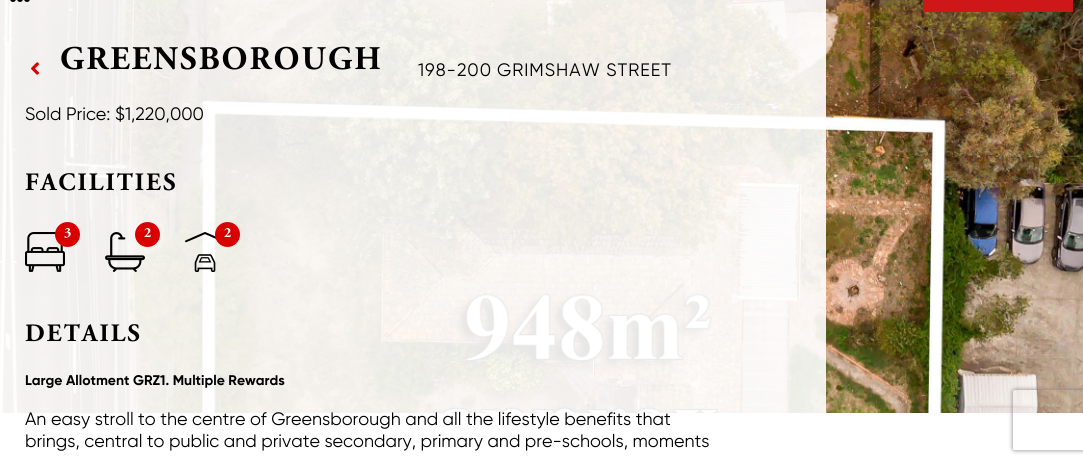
#include <cairo.h>
#include <math.h>
#include <stddef.h>

static cairo_t *ctx;

static void use_color(int r, int g, int b) {
    cairo_set_source_rgb(ctx, r / 255.0, g / 255.0, b / 255.0);
}

static void spaced_text(double x, double y, const char *s, double letter, double word) {
    cairo_move_to(ctx, x, y);
    while (*s) {
        char ch[5] = {0};
        int n = 0;
        do ch[n++] = *s++; while ((*s & 0xC0) == 0x80);
        cairo_show_text(ctx, ch);
        cairo_rel_move_to(ctx, letter + word * (*ch == ' '), 0);
    }
}

static void round_rect(double x, double y, double w, double h, double r) {
    cairo_new_sub_path(ctx);
    cairo_arc(ctx, x + w - r, y + h - r, r, 0, M_PI / 2);
    cairo_arc(ctx, x + r, y + h - r, r, M_PI / 2, M_PI);
    cairo_arc(ctx, x + r, y + r, r, M_PI, 1.5 * M_PI);
    cairo_arc(ctx, x + w - r, y + r, r, 1.5 * M_PI, 2 * M_PI);
    cairo_close_path(ctx);
}

static void shadow(double x, double y, double w, double h, double r, double blur, double alpha) {
    cairo_push_group_with_content(ctx, CAIRO_CONTENT_ALPHA);
    cairo_set_operator(ctx, CAIRO_OPERATOR_SOURCE);
    for (int i = 15; i >= -15 && fmin(w, h) + blur * i / 3 > 0; i -= 2) {
        double e = blur * i / 6;
        cairo_set_source_rgba(ctx, 0, 0, 0, alpha * erfc((i - 1) / 8.5) / 2);
        round_rect(x - e, y - e, w + 2 * e, h + 2 * e, fmax(0, fmin(r + e + blur * .6, fmin(w, h) / 2 + e)));
        cairo_fill(ctx);
    }
    cairo_pattern_t *soft = cairo_pop_group(ctx);
    cairo_mask(ctx, soft);
    cairo_pattern_destroy(soft);
}

static void picture(const char *path, double x, double y, double w, double h) {
    cairo_surface_t *image = cairo_image_surface_create_from_png(path);
    cairo_save(ctx);
    cairo_set_source_surface(ctx, image, x, y);
    cairo_rectangle(ctx, x, y, w, h);
    cairo_fill(ctx);
    cairo_restore(ctx);
    cairo_surface_destroy(image);
}

int main(void) {
    cairo_surface_t *surface = cairo_image_surface_create(CAIRO_FORMAT_RGB24, 1083, 464);
    ctx = cairo_create(surface);
    cairo_font_options_t *options = cairo_font_options_create();
    cairo_font_options_set_hint_metrics(options, CAIRO_HINT_METRICS_OFF);
    cairo_font_options_set_hint_style(options, CAIRO_HINT_STYLE_NONE);
    cairo_set_font_options(ctx, options);
    cairo_set_miter_limit(ctx, 4);
    use_color(255, 255, 255);
    cairo_paint(ctx);
    picture("img2.png", 0, 0, 1083, 413);
    cairo_set_source_rgba(ctx, 1, 1, 1, 0.9);
    cairo_rectangle(ctx, 0, 0, 826, 413);
    cairo_fill(ctx);
    picture("img1.png", 10, 0, 20, 2);
    use_color(205, 23, 25);
    cairo_rectangle(ctx, 923, 0, 150, 12);
    cairo_fill(ctx);
    picture("img3.png", 31, 62, 8, 13);
    cairo_select_font_face(ctx, "Adobe Garamond", CAIRO_FONT_SLANT_NORMAL, CAIRO_FONT_WEIGHT_BOLD);
    cairo_set_font_size(ctx, 33);
    use_color(0, 0, 0);
    spaced_text(60, 69, "GREENSBOROUGH", 2, 0);
    cairo_select_font_face(ctx, "Gilroy", CAIRO_FONT_SLANT_NORMAL, CAIRO_FONT_WEIGHT_NORMAL);
    cairo_set_font_size(ctx, 18);
    spaced_text(418, 76, "198-200", 1, 0);
    spaced_text(497, 76, "GRIMSHAW STREET", 1, 0);
    cairo_move_to(ctx, 25, 120);
    cairo_show_text(ctx, "Sold Price: $1,220,000");
    cairo_select_font_face(ctx, "Adobe Garamond", CAIRO_FONT_SLANT_NORMAL, CAIRO_FONT_WEIGHT_BOLD);
    cairo_set_font_size(ctx, 25);
    spaced_text(25, 190, "FACILITIES", 2, 0);
    picture("img4.png", 25, 232, 40, 40);
    use_color(217, 0, 0);
    cairo_arc(ctx, 67.5, 234.5, 12.5, 0, 2 * M_PI);
    cairo_fill(ctx);
    cairo_set_font_size(ctx, 14);
    use_color(255, 255, 255);
    cairo_move_to(ctx, 64, 237);
    cairo_show_text(ctx, "3");
    picture("img5.png", 105, 232, 40, 40);
    use_color(217, 0, 0);
    cairo_arc(ctx, 147.5, 234.5, 12.5, 0, 2 * M_PI);
    cairo_fill(ctx);
    use_color(255, 255, 255);
    cairo_move_to(ctx, 144, 237);
    cairo_show_text(ctx, "2");
    picture("img6.png", 185, 232, 32, 40);
    use_color(217, 0, 0);
    cairo_arc(ctx, 227.5, 234.5, 12.5, 0, 2 * M_PI);
    cairo_fill(ctx);
    use_color(255, 255, 255);
    cairo_move_to(ctx, 224, 237);
    cairo_show_text(ctx, "2");
    cairo_set_font_size(ctx, 25);
    use_color(0, 0, 0);
    spaced_text(25, 341, "DETAILS", 2, 0);
    cairo_select_font_face(ctx, "Gilroy", CAIRO_FONT_SLANT_NORMAL, CAIRO_FONT_WEIGHT_BOLD);
    cairo_set_font_size(ctx, 14);
    cairo_move_to(ctx, 25, 385);
    cairo_show_text(ctx, "Large Allotment GRZ1. Multiple Rewards");
    cairo_save(ctx);
    cairo_set_fill_rule(ctx, CAIRO_FILL_RULE_EVEN_ODD);
    cairo_new_path(ctx);
    cairo_move_to(ctx, 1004, 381);
    cairo_line_to(ctx, 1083, 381);
    cairo_line_to(ctx, 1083, 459);
    cairo_line_to(ctx, 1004, 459);
    cairo_close_path(ctx);
    cairo_move_to(ctx, 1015, 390);
    cairo_line_to(ctx, 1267, 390);
    cairo_curve_to(ctx, 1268, 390, 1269, 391, 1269, 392);
    cairo_line_to(ctx, 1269, 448);
    cairo_curve_to(ctx, 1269, 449, 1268, 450, 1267, 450);
    cairo_line_to(ctx, 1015, 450);
    cairo_curve_to(ctx, 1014, 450, 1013, 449, 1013, 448);
    cairo_line_to(ctx, 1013, 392);
    cairo_curve_to(ctx, 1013, 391, 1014, 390, 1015, 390);
    cairo_close_path(ctx);
    cairo_clip(ctx);
    use_color(128, 128, 128);
    shadow(1013, 390, 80, 60, 2, 2.5, 1);
    cairo_restore(ctx);
    cairo_select_font_face(ctx, "Gilroy", CAIRO_FONT_SLANT_NORMAL, CAIRO_FONT_WEIGHT_NORMAL);
    cairo_set_font_size(ctx, 18);
    cairo_move_to(ctx, 25, 425);
    cairo_show_text(ctx, "An easy stroll to the centre of Greensborough and all the lifestyle benefits that");
    cairo_move_to(ctx, 25, 447);
    cairo_show_text(ctx, "brings, central to public and private secondary, primary and pre-schools, moments");
    cairo_surface_write_to_png(surface, "result.png");
    cairo_font_options_destroy(options);
    cairo_destroy(ctx);
    cairo_surface_destroy(surface);
    return 0;
}
